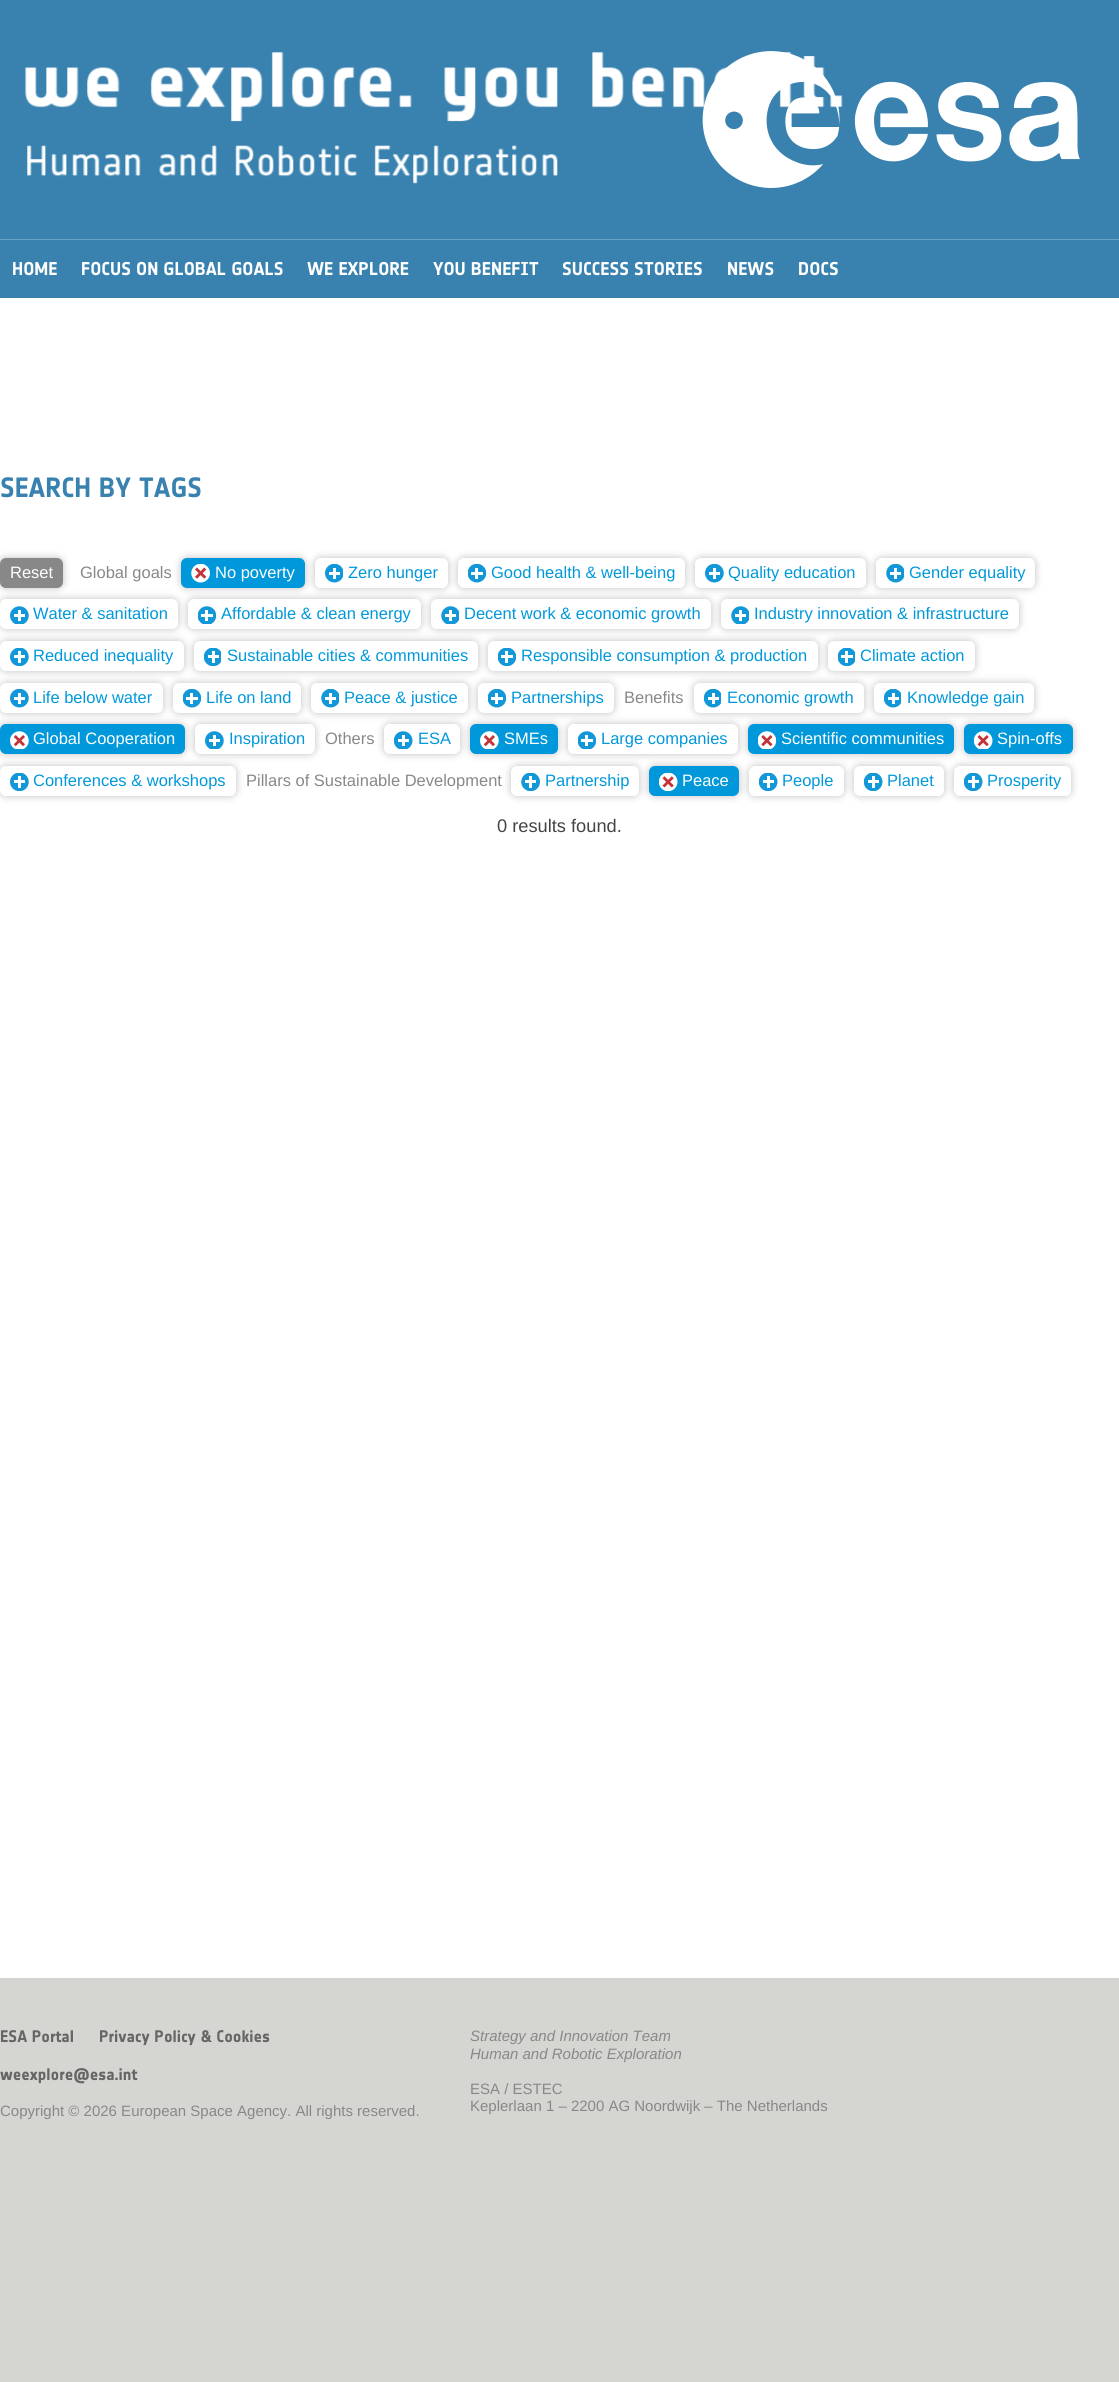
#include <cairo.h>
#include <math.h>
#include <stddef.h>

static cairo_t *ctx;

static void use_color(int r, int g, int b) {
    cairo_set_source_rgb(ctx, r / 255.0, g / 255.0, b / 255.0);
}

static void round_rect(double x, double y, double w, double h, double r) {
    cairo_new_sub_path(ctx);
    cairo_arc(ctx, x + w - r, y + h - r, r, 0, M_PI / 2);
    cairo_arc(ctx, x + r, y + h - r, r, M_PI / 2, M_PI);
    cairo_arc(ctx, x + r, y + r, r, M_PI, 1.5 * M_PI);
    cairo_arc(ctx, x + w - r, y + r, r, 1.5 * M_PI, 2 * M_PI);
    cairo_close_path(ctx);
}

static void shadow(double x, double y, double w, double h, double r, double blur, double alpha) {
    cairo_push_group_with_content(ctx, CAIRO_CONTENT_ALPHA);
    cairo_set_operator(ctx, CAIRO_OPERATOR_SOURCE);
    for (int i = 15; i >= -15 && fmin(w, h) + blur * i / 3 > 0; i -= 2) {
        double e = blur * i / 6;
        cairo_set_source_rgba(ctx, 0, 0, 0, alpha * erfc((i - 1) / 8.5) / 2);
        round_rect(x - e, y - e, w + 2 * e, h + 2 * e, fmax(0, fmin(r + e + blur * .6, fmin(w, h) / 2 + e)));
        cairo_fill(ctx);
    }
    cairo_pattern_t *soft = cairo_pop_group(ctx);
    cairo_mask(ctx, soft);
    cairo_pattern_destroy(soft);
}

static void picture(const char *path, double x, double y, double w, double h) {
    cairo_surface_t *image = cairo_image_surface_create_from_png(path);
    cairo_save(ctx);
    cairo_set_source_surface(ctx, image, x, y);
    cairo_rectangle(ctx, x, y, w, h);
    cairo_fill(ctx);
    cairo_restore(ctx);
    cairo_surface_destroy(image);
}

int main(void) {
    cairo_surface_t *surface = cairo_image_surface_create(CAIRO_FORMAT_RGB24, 1119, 2382);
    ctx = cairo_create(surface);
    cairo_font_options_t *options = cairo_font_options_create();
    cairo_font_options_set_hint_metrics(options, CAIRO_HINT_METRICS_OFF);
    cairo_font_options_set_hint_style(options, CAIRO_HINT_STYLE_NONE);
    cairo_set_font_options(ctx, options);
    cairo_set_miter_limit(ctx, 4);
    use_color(213, 214, 210);
    cairo_paint(ctx);
    use_color(57, 130, 175);
    cairo_rectangle(ctx, 0, 0, 1119, 239);
    cairo_fill(ctx);
    picture("img1.png", 25, 52, 818, 132);
    picture("img2.png", 702, 51, 378, 137);
    use_color(255, 255, 255);
    cairo_rectangle(ctx, 0, 298, 1119, 1680);
    cairo_fill(ctx);
    use_color(57, 130, 175);
    cairo_rectangle(ctx, 0, 240, 1119, 58);
    cairo_fill(ctx);
    use_color(107, 161, 195);
    cairo_rectangle(ctx, 0, 239, 1119, 1);
    cairo_fill(ctx);
    cairo_select_font_face(ctx, "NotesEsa", CAIRO_FONT_SLANT_NORMAL, CAIRO_FONT_WEIGHT_BOLD);
    cairo_set_font_size(ctx, 18.25);
    use_color(255, 255, 255);
    cairo_move_to(ctx, 12, 275);
    cairo_show_text(ctx, "HOME");
    cairo_move_to(ctx, 81, 275);
    cairo_show_text(ctx, "FOCUS ON GLOBAL GOALS");
    cairo_move_to(ctx, 307, 275);
    cairo_show_text(ctx, "WE EXPLORE");
    cairo_move_to(ctx, 433, 275);
    cairo_show_text(ctx, "YOU BENEFIT");
    cairo_move_to(ctx, 562, 275);
    cairo_show_text(ctx, "SUCCESS STORIES");
    cairo_move_to(ctx, 727, 275);
    cairo_show_text(ctx, "NEWS");
    cairo_move_to(ctx, 798, 275);
    cairo_show_text(ctx, "DOCS");
    cairo_set_font_size(ctx, 27.5);
    use_color(57, 130, 175);
    cairo_move_to(ctx, 0, 497);
    cairo_show_text(ctx, "SEARCH BY TAGS");
    use_color(0, 0, 0);
    shadow(0, 558, 63, 30, 6, 4, 0.25);
    use_color(136, 136, 136);
    round_rect(0, 558, 63, 30, 6);
    cairo_fill(ctx);
    cairo_select_font_face(ctx, "Liberation Sans", CAIRO_FONT_SLANT_NORMAL, CAIRO_FONT_WEIGHT_NORMAL);
    cairo_set_font_size(ctx, 16.5);
    use_color(255, 255, 255);
    cairo_move_to(ctx, 10, 578);
    cairo_show_text(ctx, "Reset");
    use_color(136, 136, 136);
    cairo_move_to(ctx, 80, 578);
    cairo_show_text(ctx, "Global goals");
    use_color(0, 0, 0);
    shadow(181, 558, 124, 30, 6, 4, 0.25);
    use_color(0, 152, 219);
    round_rect(181, 558, 124, 30, 6);
    cairo_fill(ctx);
    picture("img3.png", 191, 564, 19, 19);
    use_color(255, 255, 255);
    cairo_move_to(ctx, 215, 578);
    cairo_show_text(ctx, "No poverty");
    use_color(0, 0, 0);
    shadow(315, 558, 133, 30, 6, 4, 0.25);
    use_color(255, 255, 255);
    round_rect(315, 558, 133, 30, 6);
    cairo_fill(ctx);
    picture("img4.png", 325, 564, 18, 19);
    use_color(0, 152, 219);
    cairo_move_to(ctx, 348, 578);
    cairo_show_text(ctx, "Zero hunger");
    use_color(0, 0, 0);
    shadow(458, 558, 227, 30, 6, 4, 0.25);
    use_color(255, 255, 255);
    round_rect(458, 558, 227, 30, 6);
    cairo_fill(ctx);
    picture("img5.png", 468, 564, 18, 19);
    use_color(0, 152, 219);
    cairo_move_to(ctx, 491, 578);
    cairo_show_text(ctx, "Good health & well-being");
    use_color(0, 0, 0);
    shadow(695, 558, 171, 30, 6, 4, 0.25);
    use_color(255, 255, 255);
    round_rect(695, 558, 171, 30, 6);
    cairo_fill(ctx);
    picture("img6.png", 705, 564, 19, 19);
    use_color(0, 152, 219);
    cairo_move_to(ctx, 728, 578);
    cairo_show_text(ctx, "Quality education");
    use_color(0, 0, 0);
    shadow(876, 558, 159, 30, 6, 4, 0.25);
    use_color(255, 255, 255);
    round_rect(876, 558, 159, 30, 6);
    cairo_fill(ctx);
    picture("img7.png", 886, 564, 18, 19);
    use_color(0, 152, 219);
    cairo_move_to(ctx, 909, 578);
    cairo_show_text(ctx, "Gender equality");
    use_color(0, 0, 0);
    shadow(0, 599, 178, 30, 6, 4, 0.25);
    use_color(255, 255, 255);
    round_rect(0, 599, 178, 30, 6);
    cairo_fill(ctx);
    picture("img8.png", 10, 606, 19, 18);
    use_color(0, 152, 219);
    cairo_move_to(ctx, 33, 619);
    cairo_show_text(ctx, "Water & sanitation");
    use_color(0, 0, 0);
    shadow(188, 599, 233, 30, 6, 4, 0.25);
    use_color(255, 255, 255);
    round_rect(188, 599, 233, 30, 6);
    cairo_fill(ctx);
    picture("img9.png", 198, 606, 18, 18);
    use_color(0, 152, 219);
    cairo_move_to(ctx, 221, 619);
    cairo_show_text(ctx, "Affordable & clean energy");
    use_color(0, 0, 0);
    shadow(431, 599, 280, 30, 6, 4, 0.25);
    use_color(255, 255, 255);
    round_rect(431, 599, 280, 30, 6);
    cairo_fill(ctx);
    picture("img10.png", 441, 606, 18, 18);
    use_color(0, 152, 219);
    cairo_move_to(ctx, 464, 619);
    cairo_show_text(ctx, "Decent work & economic growth");
    use_color(0, 0, 0);
    shadow(721, 599, 298, 30, 6, 4, 0.25);
    use_color(255, 255, 255);
    round_rect(721, 599, 298, 30, 6);
    cairo_fill(ctx);
    picture("img10.png", 731, 606, 18, 18);
    use_color(0, 152, 219);
    cairo_move_to(ctx, 754, 619);
    cairo_show_text(ctx, "Industry innovation & infrastructure");
    use_color(0, 0, 0);
    shadow(0, 641, 184, 30, 6, 4, 0.25);
    use_color(255, 255, 255);
    round_rect(0, 641, 184, 30, 6);
    cairo_fill(ctx);
    picture("img11.png", 10, 648, 19, 18);
    use_color(0, 152, 219);
    cairo_move_to(ctx, 33, 661);
    cairo_show_text(ctx, "Reduced inequality");
    use_color(0, 0, 0);
    shadow(194, 641, 284, 30, 6, 4, 0.25);
    use_color(255, 255, 255);
    round_rect(194, 641, 284, 30, 6);
    cairo_fill(ctx);
    picture("img12.png", 204, 648, 17, 18);
    use_color(0, 152, 219);
    cairo_move_to(ctx, 227, 661);
    cairo_show_text(ctx, "Sustainable cities & communities");
    use_color(0, 0, 0);
    shadow(488, 641, 330, 30, 6, 4, 0.25);
    use_color(255, 255, 255);
    round_rect(488, 641, 330, 30, 6);
    cairo_fill(ctx);
    picture("img13.png", 498, 648, 18, 18);
    use_color(0, 152, 219);
    cairo_move_to(ctx, 521, 661);
    cairo_show_text(ctx, "Responsible consumption & production");
    use_color(0, 0, 0);
    shadow(828, 641, 147, 30, 6, 4, 0.25);
    use_color(255, 255, 255);
    round_rect(828, 641, 147, 30, 6);
    cairo_fill(ctx);
    picture("img14.png", 838, 648, 17, 18);
    use_color(0, 152, 219);
    cairo_move_to(ctx, 860, 661);
    cairo_show_text(ctx, "Climate action");
    use_color(0, 0, 0);
    shadow(0, 683, 163, 30, 6, 4, 0.25);
    use_color(255, 255, 255);
    round_rect(0, 683, 163, 30, 6);
    cairo_fill(ctx);
    picture("img6.png", 10, 689, 19, 19);
    use_color(0, 152, 219);
    cairo_move_to(ctx, 33, 703);
    cairo_show_text(ctx, "Life below water");
    use_color(0, 0, 0);
    shadow(173, 683, 128, 30, 6, 4, 0.25);
    use_color(255, 255, 255);
    round_rect(173, 683, 128, 30, 6);
    cairo_fill(ctx);
    picture("img5.png", 183, 689, 18, 19);
    use_color(0, 152, 219);
    cairo_move_to(ctx, 206, 703);
    cairo_show_text(ctx, "Life on land");
    use_color(0, 0, 0);
    shadow(311, 683, 157, 30, 6, 4, 0.25);
    use_color(255, 255, 255);
    round_rect(311, 683, 157, 30, 6);
    cairo_fill(ctx);
    picture("img7.png", 321, 689, 18, 19);
    use_color(0, 152, 219);
    cairo_move_to(ctx, 344, 703);
    cairo_show_text(ctx, "Peace & justice");
    use_color(0, 0, 0);
    shadow(478, 683, 136, 30, 6, 4, 0.25);
    use_color(255, 255, 255);
    round_rect(478, 683, 136, 30, 6);
    cairo_fill(ctx);
    picture("img5.png", 488, 689, 18, 19);
    use_color(0, 152, 219);
    cairo_move_to(ctx, 511, 703);
    cairo_show_text(ctx, "Partnerships");
    use_color(136, 136, 136);
    cairo_move_to(ctx, 624, 703);
    cairo_show_text(ctx, "Benefits");
    use_color(0, 0, 0);
    shadow(694, 683, 170, 30, 6, 4, 0.25);
    use_color(255, 255, 255);
    round_rect(694, 683, 170, 30, 6);
    cairo_fill(ctx);
    picture("img15.png", 704, 689, 17, 19);
    use_color(0, 152, 219);
    cairo_move_to(ctx, 727, 703);
    cairo_show_text(ctx, "Economic growth");
    use_color(0, 0, 0);
    shadow(874, 683, 160, 30, 6, 4, 0.25);
    use_color(255, 255, 255);
    round_rect(874, 683, 160, 30, 6);
    cairo_fill(ctx);
    picture("img15.png", 884, 689, 17, 19);
    use_color(0, 152, 219);
    cairo_move_to(ctx, 907, 703);
    cairo_show_text(ctx, "Knowledge gain");
    use_color(0, 0, 0);
    shadow(0, 724, 185, 30, 6, 4, 0.25);
    use_color(0, 152, 219);
    round_rect(0, 724, 185, 30, 6);
    cairo_fill(ctx);
    picture("img16.png", 10, 731, 19, 18);
    use_color(255, 255, 255);
    cairo_move_to(ctx, 33, 744);
    cairo_show_text(ctx, "Global Cooperation");
    use_color(0, 0, 0);
    shadow(195, 724, 120, 30, 6, 4, 0.25);
    use_color(255, 255, 255);
    round_rect(195, 724, 120, 30, 6);
    cairo_fill(ctx);
    picture("img8.png", 205, 731, 19, 18);
    use_color(0, 152, 219);
    cairo_move_to(ctx, 229, 744);
    cairo_show_text(ctx, "Inspiration");
    use_color(136, 136, 136);
    cairo_move_to(ctx, 325, 744);
    cairo_show_text(ctx, "Others");
    use_color(0, 0, 0);
    shadow(384, 724, 76, 30, 6, 4, 0.25);
    use_color(255, 255, 255);
    round_rect(384, 724, 76, 30, 6);
    cairo_fill(ctx);
    picture("img17.png", 394, 731, 19, 18);
    use_color(0, 152, 219);
    cairo_move_to(ctx, 418, 744);
    cairo_show_text(ctx, "ESA");
    use_color(0, 0, 0);
    shadow(470, 724, 88, 30, 6, 4, 0.25);
    use_color(0, 152, 219);
    round_rect(470, 724, 88, 30, 6);
    cairo_fill(ctx);
    picture("img16.png", 480, 731, 19, 18);
    use_color(255, 255, 255);
    cairo_move_to(ctx, 504, 744);
    cairo_show_text(ctx, "SMEs");
    use_color(0, 0, 0);
    shadow(568, 724, 170, 30, 6, 4, 0.25);
    use_color(255, 255, 255);
    round_rect(568, 724, 170, 30, 6);
    cairo_fill(ctx);
    picture("img9.png", 578, 731, 18, 18);
    use_color(0, 152, 219);
    cairo_move_to(ctx, 601, 744);
    cairo_show_text(ctx, "Large companies");
    use_color(0, 0, 0);
    shadow(748, 724, 206, 30, 6, 4, 0.25);
    use_color(0, 152, 219);
    round_rect(748, 724, 206, 30, 6);
    cairo_fill(ctx);
    picture("img18.png", 758, 731, 18, 18);
    use_color(255, 255, 255);
    cairo_move_to(ctx, 781, 744);
    cairo_show_text(ctx, "Scientific communities");
    use_color(0, 0, 0);
    shadow(964, 724, 109, 30, 6, 4, 0.25);
    use_color(0, 152, 219);
    round_rect(964, 724, 109, 30, 6);
    cairo_fill(ctx);
    picture("img19.png", 974, 731, 19, 18);
    use_color(255, 255, 255);
    cairo_move_to(ctx, 997, 744);
    cairo_show_text(ctx, "Spin-offs");
    use_color(0, 0, 0);
    shadow(0, 766, 236, 30, 6, 4, 0.25);
    use_color(255, 255, 255);
    round_rect(0, 766, 236, 30, 6);
    cairo_fill(ctx);
    picture("img11.png", 10, 773, 19, 18);
    use_color(0, 152, 219);
    cairo_move_to(ctx, 33, 786);
    cairo_show_text(ctx, "Conferences & workshops");
    use_color(136, 136, 136);
    cairo_move_to(ctx, 246, 786);
    cairo_show_text(ctx, "Pillars of Sustainable Development");
    use_color(0, 0, 0);
    shadow(511, 766, 128, 30, 6, 4, 0.25);
    use_color(255, 255, 255);
    round_rect(511, 766, 128, 30, 6);
    cairo_fill(ctx);
    picture("img20.png", 521, 773, 19, 18);
    use_color(0, 152, 219);
    cairo_move_to(ctx, 545, 786);
    cairo_show_text(ctx, "Partnership");
    use_color(0, 0, 0);
    shadow(649, 766, 90, 30, 6, 4, 0.25);
    use_color(0, 152, 219);
    round_rect(649, 766, 90, 30, 6);
    cairo_fill(ctx);
    picture("img21.png", 659, 773, 19, 18);
    use_color(255, 255, 255);
    cairo_move_to(ctx, 682, 786);
    cairo_show_text(ctx, "Peace");
    use_color(0, 0, 0);
    shadow(749, 766, 95, 30, 6, 4, 0.25);
    use_color(255, 255, 255);
    round_rect(749, 766, 95, 30, 6);
    cairo_fill(ctx);
    picture("img22.png", 759, 773, 19, 18);
    use_color(0, 152, 219);
    cairo_move_to(ctx, 782, 786);
    cairo_show_text(ctx, "People");
    use_color(0, 0, 0);
    shadow(854, 766, 90, 30, 6, 4, 0.25);
    use_color(255, 255, 255);
    round_rect(854, 766, 90, 30, 6);
    cairo_fill(ctx);
    picture("img22.png", 864, 773, 19, 18);
    use_color(0, 152, 219);
    cairo_move_to(ctx, 887, 786);
    cairo_show_text(ctx, "Planet");
    use_color(0, 0, 0);
    shadow(954, 766, 117, 30, 6, 4, 0.25);
    use_color(255, 255, 255);
    round_rect(954, 766, 117, 30, 6);
    cairo_fill(ctx);
    picture("img22.png", 964, 773, 19, 18);
    use_color(0, 152, 219);
    cairo_move_to(ctx, 987, 786);
    cairo_show_text(ctx, "Prosperity");
    cairo_set_font_size(ctx, 18.25);
    use_color(68, 68, 68);
    cairo_move_to(ctx, 497, 832);
    cairo_show_text(ctx, "0 results found.");
    cairo_select_font_face(ctx, "NotesEsa", CAIRO_FONT_SLANT_NORMAL, CAIRO_FONT_WEIGHT_BOLD);
    cairo_set_font_size(ctx, 16.5);
    use_color(102, 102, 102);
    cairo_move_to(ctx, 0, 2042);
    cairo_show_text(ctx, "ESA Portal");
    cairo_move_to(ctx, 99, 2042);
    cairo_show_text(ctx, "Privacy Policy & Cookies");
    cairo_move_to(ctx, 0, 2080);
    cairo_show_text(ctx, "weexplore@esa.int");
    cairo_select_font_face(ctx, "Liberation Sans", CAIRO_FONT_SLANT_NORMAL, CAIRO_FONT_WEIGHT_NORMAL);
    cairo_set_font_size(ctx, 15);
    use_color(136, 136, 136);
    cairo_move_to(ctx, 0, 2116);
    cairo_show_text(ctx, "Copyright © 2026 European Space Agency. All rights reserved.");
    cairo_select_font_face(ctx, "Liberation Sans", CAIRO_FONT_SLANT_ITALIC, CAIRO_FONT_WEIGHT_NORMAL);
    cairo_move_to(ctx, 470, 2041);
    cairo_show_text(ctx, "Strategy and Innovation Team");
    cairo_move_to(ctx, 470, 2059);
    cairo_show_text(ctx, "Human and Robotic Exploration");
    cairo_select_font_face(ctx, "Liberation Sans", CAIRO_FONT_SLANT_NORMAL, CAIRO_FONT_WEIGHT_NORMAL);
    cairo_move_to(ctx, 470, 2094);
    cairo_show_text(ctx, "ESA / ESTEC");
    cairo_move_to(ctx, 470, 2111);
    cairo_show_text(ctx, "Keplerlaan 1 – 2200 AG Noordwijk – The Netherlands");
    cairo_surface_write_to_png(surface, "result.png");
    cairo_font_options_destroy(options);
    cairo_destroy(ctx);
    cairo_surface_destroy(surface);
    return 0;
}
